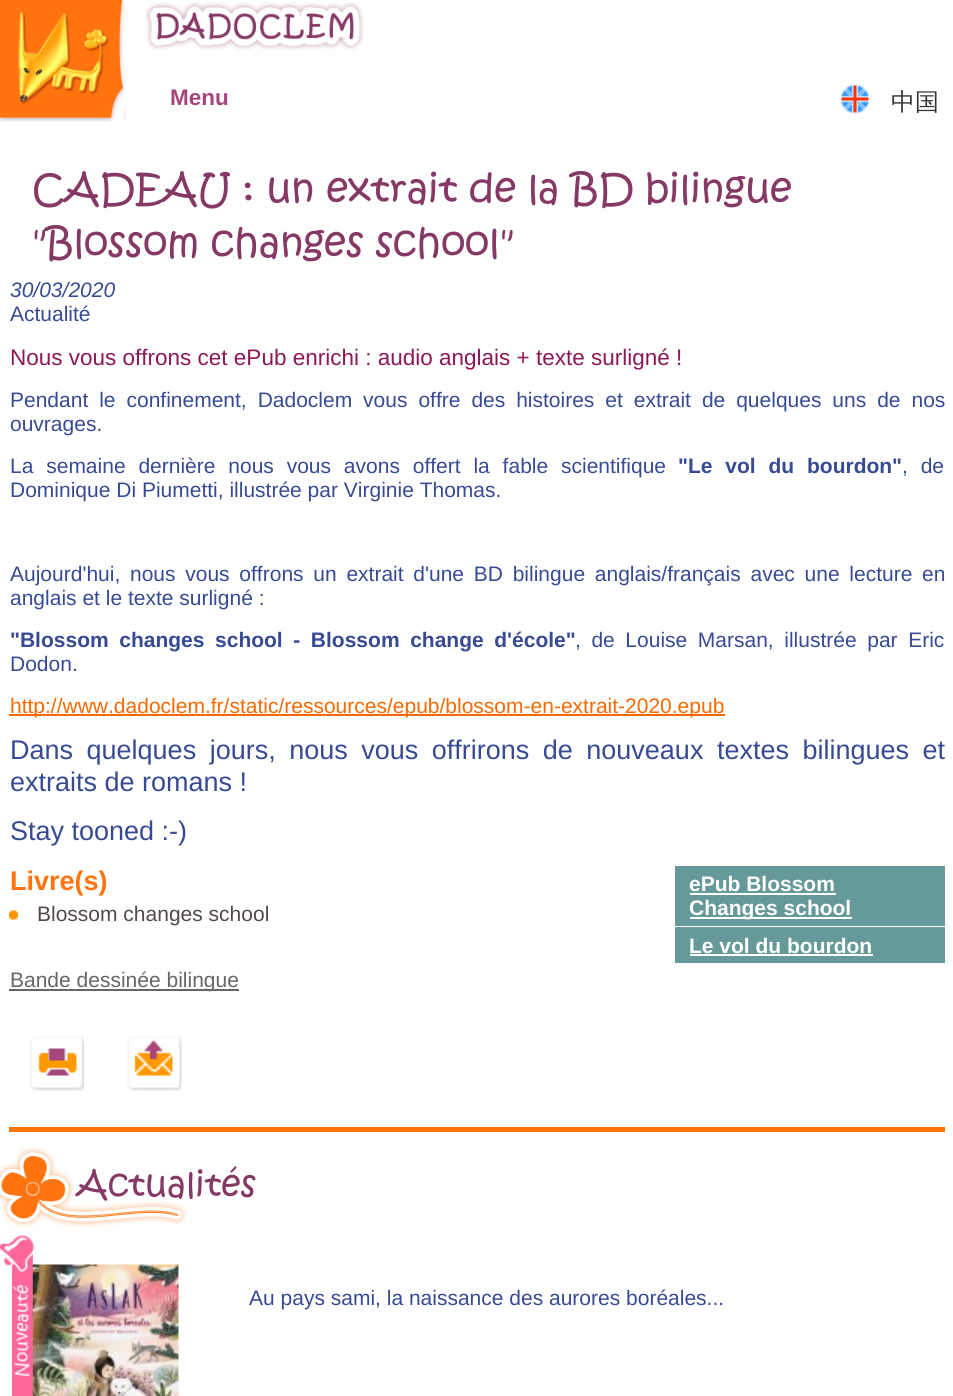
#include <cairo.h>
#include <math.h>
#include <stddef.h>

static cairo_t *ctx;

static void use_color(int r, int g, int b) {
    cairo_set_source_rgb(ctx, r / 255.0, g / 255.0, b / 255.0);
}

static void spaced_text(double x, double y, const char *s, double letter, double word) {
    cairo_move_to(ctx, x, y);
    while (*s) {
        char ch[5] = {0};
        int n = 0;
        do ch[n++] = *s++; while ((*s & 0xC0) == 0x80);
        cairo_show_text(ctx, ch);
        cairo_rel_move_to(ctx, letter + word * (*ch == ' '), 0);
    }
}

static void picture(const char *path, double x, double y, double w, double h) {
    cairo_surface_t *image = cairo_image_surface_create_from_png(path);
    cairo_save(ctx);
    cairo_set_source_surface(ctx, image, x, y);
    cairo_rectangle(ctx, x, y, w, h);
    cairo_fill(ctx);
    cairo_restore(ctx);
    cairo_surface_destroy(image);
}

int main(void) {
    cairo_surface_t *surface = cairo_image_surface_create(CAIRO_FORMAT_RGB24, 953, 1396);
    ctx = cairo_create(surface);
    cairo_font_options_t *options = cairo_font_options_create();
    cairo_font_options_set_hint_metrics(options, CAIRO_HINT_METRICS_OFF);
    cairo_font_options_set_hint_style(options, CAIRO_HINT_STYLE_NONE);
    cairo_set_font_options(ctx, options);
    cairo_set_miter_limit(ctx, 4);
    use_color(255, 255, 255);
    cairo_paint(ctx);
    picture("img1.png", 0, 0, 126, 122);
    picture("img2.png", 145, 2, 219, 48);
    cairo_select_font_face(ctx, "Liberation Sans", CAIRO_FONT_SLANT_NORMAL, CAIRO_FONT_WEIGHT_BOLD);
    cairo_set_font_size(ctx, 22.5);
    use_color(166, 71, 123);
    cairo_move_to(ctx, 170, 105);
    cairo_show_text(ctx, "Menu");
    picture("img3.png", 841, 85, 28, 28);
    cairo_select_font_face(ctx, "WenQuanYi Zen Hei Medium", CAIRO_FONT_SLANT_NORMAL, CAIRO_FONT_WEIGHT_NORMAL);
    cairo_set_font_size(ctx, 24);
    use_color(51, 51, 51);
    cairo_move_to(ctx, 891, 110);
    cairo_show_text(ctx, "中国");
    cairo_select_font_face(ctx, "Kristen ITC", CAIRO_FONT_SLANT_NORMAL, CAIRO_FONT_WEIGHT_NORMAL);
    cairo_set_font_size(ctx, 39);
    use_color(134, 57, 100);
    cairo_move_to(ctx, 32, 203);
    cairo_show_text(ctx, "CADEAU : un extrait de la BD bilingue");
    cairo_move_to(ctx, 32, 257);
    cairo_show_text(ctx, "\"Blossom changes school\"");
    cairo_select_font_face(ctx, "Liberation Sans", CAIRO_FONT_SLANT_ITALIC, CAIRO_FONT_WEIGHT_NORMAL);
    cairo_set_font_size(ctx, 21);
    use_color(55, 74, 147);
    cairo_move_to(ctx, 10, 297);
    cairo_show_text(ctx, "30/03/2020");
    cairo_select_font_face(ctx, "Liberation Sans", CAIRO_FONT_SLANT_NORMAL, CAIRO_FONT_WEIGHT_NORMAL);
    cairo_move_to(ctx, 10, 321);
    cairo_show_text(ctx, "Actualité");
    cairo_set_font_size(ctx, 22.5);
    use_color(140, 24, 87);
    cairo_move_to(ctx, 10, 365);
    cairo_show_text(ctx, "Nous vous offrons cet ePub enrichi : audio anglais + texte surligné !");
    cairo_set_font_size(ctx, 21);
    use_color(55, 74, 147);
    spaced_text(10, 407, "Pendant le confinement, Dadoclem vous offre des histoires et extrait de quelques uns de nos", 0, 5.1);
    cairo_move_to(ctx, 10, 431);
    cairo_show_text(ctx, "ouvrages.");
    spaced_text(10, 473, "La semaine dernière nous vous avons offert la fable scientifique", 0, 7);
    cairo_select_font_face(ctx, "Liberation Sans", CAIRO_FONT_SLANT_NORMAL, CAIRO_FONT_WEIGHT_BOLD);
    spaced_text(678, 473, "\"Le vol du bourdon\"", 0, 7);
    cairo_select_font_face(ctx, "Liberation Sans", CAIRO_FONT_SLANT_NORMAL, CAIRO_FONT_WEIGHT_NORMAL);
    spaced_text(902, 473, ", de", 0, 7);
    cairo_move_to(ctx, 10, 497);
    cairo_show_text(ctx, "Dominique Di Piumetti, illustrée par Virginie Thomas.");
    spaced_text(10, 581, "Aujourd'hui, nous vous offrons un extrait d'une BD bilingue anglais/français avec une lecture en", 0, 3.9);
    cairo_move_to(ctx, 10, 605);
    cairo_show_text(ctx, "anglais et le texte surligné :");
    cairo_select_font_face(ctx, "Liberation Sans", CAIRO_FONT_SLANT_NORMAL, CAIRO_FONT_WEIGHT_BOLD);
    spaced_text(10, 647, "\"Blossom changes school - Blossom change d'école\"", 0, 4.75);
    cairo_select_font_face(ctx, "Liberation Sans", CAIRO_FONT_SLANT_NORMAL, CAIRO_FONT_WEIGHT_NORMAL);
    spaced_text(575, 647, ", de Louise Marsan, illustrée par Eric", 0, 4.75);
    cairo_move_to(ctx, 10, 671);
    cairo_show_text(ctx, "Dodon.");
    use_color(249, 105, 0);
    cairo_rectangle(ctx, 9, 714, 716, 2);
    cairo_fill(ctx);
    cairo_move_to(ctx, 10, 713);
    cairo_show_text(ctx, "http://www.dadoclem.fr/static/ressources/epub/blossom-en-extrait-2020.epub");
    cairo_set_font_size(ctx, 27);
    use_color(55, 74, 147);
    spaced_text(10, 759, "Dans quelques jours, nous vous offrirons de nouveaux textes bilingues et", 0, 6);
    cairo_move_to(ctx, 10, 791);
    cairo_show_text(ctx, "extraits de romans !");
    cairo_move_to(ctx, 10, 840);
    cairo_show_text(ctx, "Stay tooned :-)");
    cairo_select_font_face(ctx, "Liberation Sans", CAIRO_FONT_SLANT_NORMAL, CAIRO_FONT_WEIGHT_BOLD);
    use_color(255, 116, 15);
    cairo_move_to(ctx, 10, 890);
    cairo_show_text(ctx, "Livre(s)");
    picture("img4.png", 9, 910, 9, 10);
    cairo_select_font_face(ctx, "Liberation Sans", CAIRO_FONT_SLANT_NORMAL, CAIRO_FONT_WEIGHT_NORMAL);
    cairo_set_font_size(ctx, 21);
    use_color(83, 72, 75);
    cairo_move_to(ctx, 37, 921);
    cairo_show_text(ctx, "Blossom changes school");
    use_color(102, 153, 153);
    cairo_rectangle(ctx, 675, 866, 270, 60);
    cairo_fill(ctx);
    cairo_select_font_face(ctx, "Liberation Sans", CAIRO_FONT_SLANT_NORMAL, CAIRO_FONT_WEIGHT_BOLD);
    use_color(255, 255, 255);
    cairo_move_to(ctx, 689, 891);
    cairo_show_text(ctx, "ePub Blossom");
    cairo_rectangle(ctx, 690, 893, 146, 2);
    cairo_fill(ctx);
    cairo_rectangle(ctx, 690, 917, 162, 2);
    cairo_fill(ctx);
    cairo_move_to(ctx, 689, 915);
    cairo_show_text(ctx, "Changes school");
    use_color(102, 153, 153);
    cairo_rectangle(ctx, 675, 927, 270, 36);
    cairo_fill(ctx);
    use_color(255, 255, 255);
    cairo_move_to(ctx, 689, 953);
    cairo_show_text(ctx, "Le vol du bourdon");
    cairo_rectangle(ctx, 690, 954, 183, 2);
    cairo_fill(ctx);
    use_color(102, 102, 102);
    cairo_rectangle(ctx, 9, 989, 230, 2);
    cairo_fill(ctx);
    cairo_select_font_face(ctx, "Liberation Sans", CAIRO_FONT_SLANT_NORMAL, CAIRO_FONT_WEIGHT_NORMAL);
    cairo_move_to(ctx, 10, 987);
    cairo_show_text(ctx, "Bande dessinée bilingue");
    picture("img5.png", 30, 1036, 54, 55);
    picture("img6.png", 127, 1036, 55, 55);
    use_color(255, 117, 0);
    cairo_rectangle(ctx, 9, 1127, 936, 5);
    cairo_fill(ctx);
    picture("img7.png", 0, 1147, 187, 80);
    cairo_select_font_face(ctx, "Kristen ITC", CAIRO_FONT_SLANT_NORMAL, CAIRO_FONT_WEIGHT_NORMAL);
    cairo_set_font_size(ctx, 34.5);
    use_color(134, 57, 100);
    cairo_move_to(ctx, 77, 1197);
    cairo_show_text(ctx, "Actualités");
    picture("img9.png", 32, 1264, 147, 132);
    picture("img8.png", 0, 1235, 34, 161);
    cairo_select_font_face(ctx, "Liberation Sans", CAIRO_FONT_SLANT_NORMAL, CAIRO_FONT_WEIGHT_NORMAL);
    cairo_set_font_size(ctx, 21);
    use_color(55, 74, 147);
    cairo_move_to(ctx, 249, 1305);
    cairo_show_text(ctx, "Au pays sami, la naissance des aurores boréales...");
    cairo_surface_write_to_png(surface, "result.png");
    cairo_font_options_destroy(options);
    cairo_destroy(ctx);
    cairo_surface_destroy(surface);
    return 0;
}
